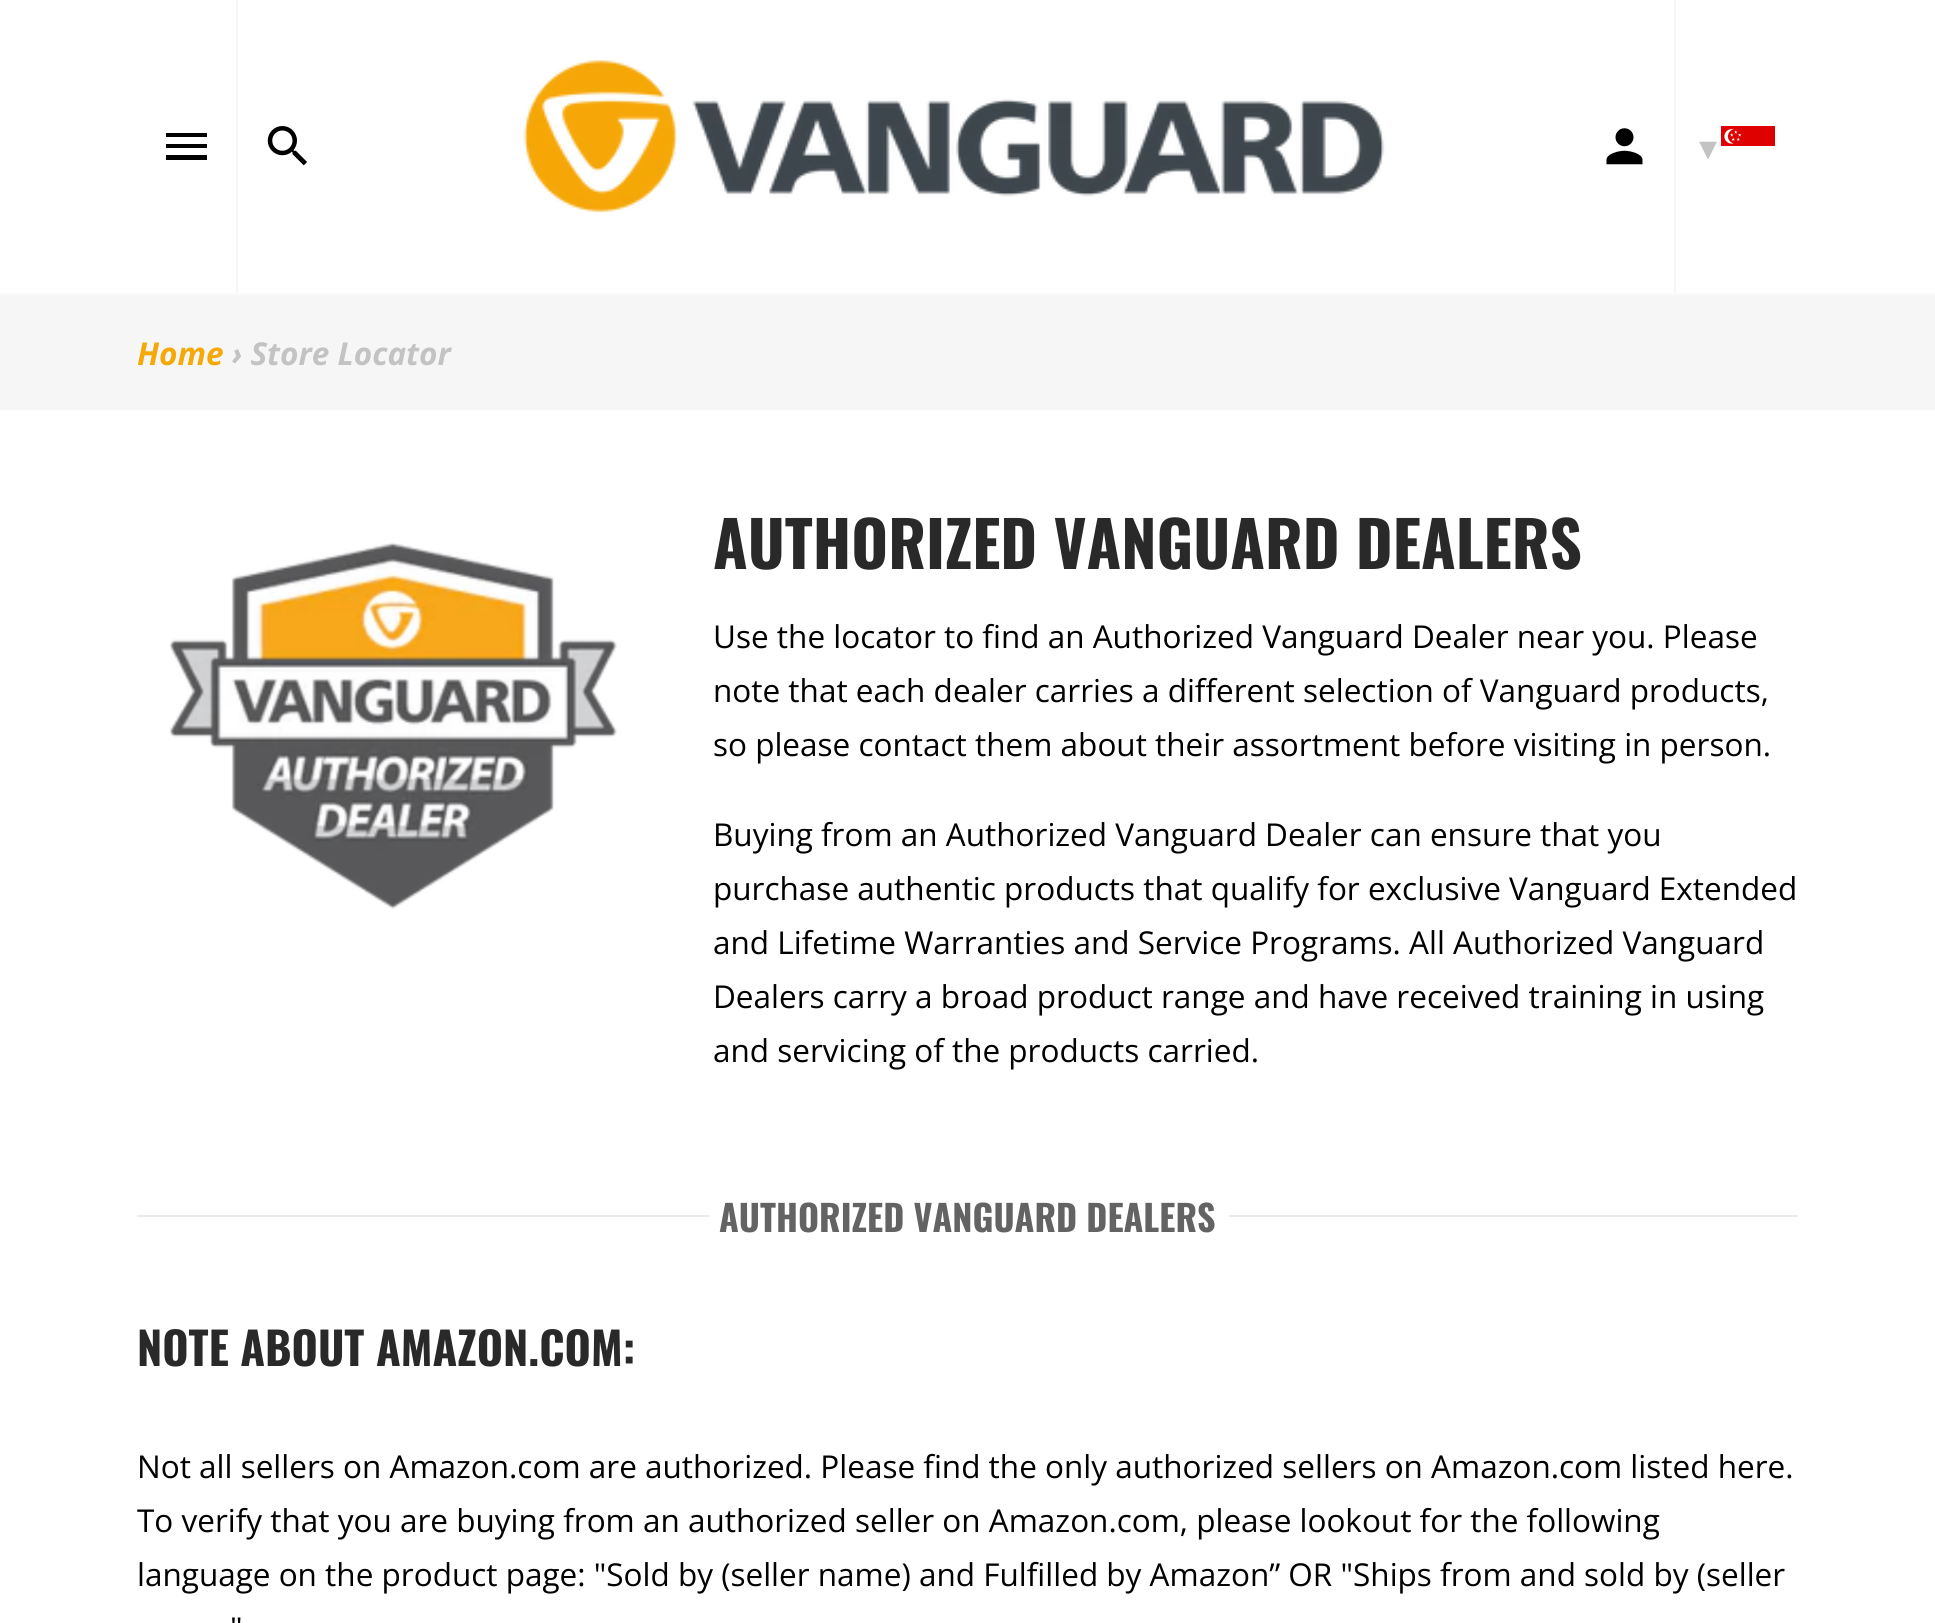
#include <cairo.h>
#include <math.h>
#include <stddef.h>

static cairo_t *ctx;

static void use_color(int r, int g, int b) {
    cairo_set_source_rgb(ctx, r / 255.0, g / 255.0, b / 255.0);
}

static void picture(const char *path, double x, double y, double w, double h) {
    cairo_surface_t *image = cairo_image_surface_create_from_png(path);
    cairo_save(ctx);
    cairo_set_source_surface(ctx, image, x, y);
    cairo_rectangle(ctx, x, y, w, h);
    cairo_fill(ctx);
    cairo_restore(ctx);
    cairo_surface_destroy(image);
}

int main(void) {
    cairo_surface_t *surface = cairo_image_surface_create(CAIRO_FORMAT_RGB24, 1935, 1623);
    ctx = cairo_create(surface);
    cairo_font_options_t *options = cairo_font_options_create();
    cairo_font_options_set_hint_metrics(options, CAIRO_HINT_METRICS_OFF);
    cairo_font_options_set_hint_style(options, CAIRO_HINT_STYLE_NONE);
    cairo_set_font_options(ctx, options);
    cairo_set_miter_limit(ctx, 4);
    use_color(246, 246, 246);
    cairo_paint(ctx);
    use_color(255, 255, 255);
    cairo_rectangle(ctx, 0, 0, 1935, 293);
    cairo_fill(ctx);
    use_color(250, 250, 250);
    cairo_rectangle(ctx, 0, 293, 1935, 2);
    cairo_fill(ctx);
    use_color(0, 0, 0);
    cairo_new_path(ctx);
    cairo_move_to(ctx, 166, 160);
    cairo_line_to(ctx, 207, 160);
    cairo_line_to(ctx, 207, 155);
    cairo_line_to(ctx, 166, 155);
    cairo_close_path(ctx);
    cairo_move_to(ctx, 166, 148);
    cairo_line_to(ctx, 207, 148);
    cairo_line_to(ctx, 207, 144);
    cairo_line_to(ctx, 166, 144);
    cairo_close_path(ctx);
    cairo_move_to(ctx, 166, 133);
    cairo_line_to(ctx, 166, 137);
    cairo_line_to(ctx, 207, 137);
    cairo_line_to(ctx, 207, 133);
    cairo_close_path(ctx);
    cairo_fill(ctx);
    use_color(246, 246, 246);
    cairo_rectangle(ctx, 236, 0, 2, 293);
    cairo_fill(ctx);
    picture("img1.png", 267, 126, 40, 40);
    picture("img2.png", 523, 60, 862, 153);
    picture("img3.png", 1606, 128, 37, 37);
    cairo_rectangle(ctx, 1674, 0, 2, 293);
    cairo_fill(ctx);
    picture("img4.png", 1721, 126, 54, 20);
    cairo_select_font_face(ctx, "DejaVu Sans", CAIRO_FONT_SLANT_NORMAL, CAIRO_FONT_WEIGHT_NORMAL);
    cairo_set_font_size(ctx, 36);
    use_color(195, 195, 195);
    cairo_move_to(ctx, 1699, 160);
    cairo_show_text(ctx, "▾");
    cairo_select_font_face(ctx, "Open Sans", CAIRO_FONT_SLANT_ITALIC, CAIRO_FONT_WEIGHT_BOLD);
    cairo_set_font_size(ctx, 31.5);
    use_color(246, 168, 6);
    cairo_move_to(ctx, 137, 365);
    cairo_show_text(ctx, "Home");
    use_color(195, 195, 195);
    cairo_move_to(ctx, 232, 365);
    cairo_show_text(ctx, "› Store Locator");
    use_color(255, 255, 255);
    cairo_rectangle(ctx, 0, 410, 1935, 1213);
    cairo_fill(ctx);
    picture("img5.png", 169, 542, 448, 367);
    cairo_select_font_face(ctx, "Oswald", CAIRO_FONT_SLANT_NORMAL, CAIRO_FONT_WEIGHT_BOLD);
    cairo_set_font_size(ctx, 63);
    use_color(41, 41, 41);
    cairo_move_to(ctx, 713, 569);
    cairo_show_text(ctx, "AUTHORIZED VANGUARD DEALERS");
    cairo_select_font_face(ctx, "Open Sans", CAIRO_FONT_SLANT_NORMAL, CAIRO_FONT_WEIGHT_NORMAL);
    cairo_set_font_size(ctx, 31.5);
    use_color(0, 0, 0);
    cairo_move_to(ctx, 713, 648);
    cairo_show_text(ctx, "Use the locator to find an Authorized Vanguard Dealer near you. Please");
    cairo_move_to(ctx, 713, 702);
    cairo_show_text(ctx, "note that each dealer carries a different selection of Vanguard products,");
    cairo_move_to(ctx, 713, 756);
    cairo_show_text(ctx, "so please contact them about their assortment before visiting in person.");
    cairo_move_to(ctx, 713, 846);
    cairo_show_text(ctx, "Buying from an Authorized Vanguard Dealer can ensure that you");
    cairo_move_to(ctx, 713, 900);
    cairo_show_text(ctx, "purchase authentic products that qualify for exclusive Vanguard Extended");
    cairo_move_to(ctx, 713, 954);
    cairo_show_text(ctx, "and Lifetime Warranties and Service Programs. All Authorized Vanguard");
    cairo_move_to(ctx, 713, 1008);
    cairo_show_text(ctx, "Dealers carry a broad product range and have received training in using");
    cairo_move_to(ctx, 713, 1062);
    cairo_show_text(ctx, "and servicing of the products carried.");
    use_color(235, 235, 235);
    cairo_rectangle(ctx, 137, 1215, 1661, 2);
    cairo_fill(ctx);
    use_color(255, 255, 255);
    cairo_rectangle(ctx, 709, 1215, 520, 2);
    cairo_fill(ctx);
    cairo_select_font_face(ctx, "Oswald", CAIRO_FONT_SLANT_NORMAL, CAIRO_FONT_WEIGHT_BOLD);
    cairo_set_font_size(ctx, 36);
    use_color(99, 99, 99);
    cairo_move_to(ctx, 719, 1232);
    cairo_show_text(ctx, "AUTHORIZED VANGUARD DEALERS");
    cairo_set_font_size(ctx, 45);
    use_color(41, 41, 41);
    cairo_move_to(ctx, 137, 1366);
    cairo_show_text(ctx, "NOTE ABOUT AMAZON.COM:");
    cairo_select_font_face(ctx, "Open Sans", CAIRO_FONT_SLANT_NORMAL, CAIRO_FONT_WEIGHT_NORMAL);
    cairo_set_font_size(ctx, 31.5);
    use_color(0, 0, 0);
    cairo_move_to(ctx, 137, 1478);
    cairo_show_text(ctx, "Not all sellers on Amazon.com are authorized. Please find the only authorized sellers on Amazon.com listed here.");
    cairo_move_to(ctx, 137, 1532);
    cairo_show_text(ctx, "To verify that you are buying from an authorized seller on Amazon.com, please lookout for the following");
    cairo_move_to(ctx, 137, 1586);
    cairo_show_text(ctx, "language on the product page: \"Sold by (seller name) and Fulfilled by Amazon” OR \"Ships from and sold by (seller");
    cairo_move_to(ctx, 230, 1640);
    cairo_show_text(ctx, "\"");
    cairo_surface_write_to_png(surface, "result.png");
    cairo_font_options_destroy(options);
    cairo_destroy(ctx);
    cairo_surface_destroy(surface);
    return 0;
}
